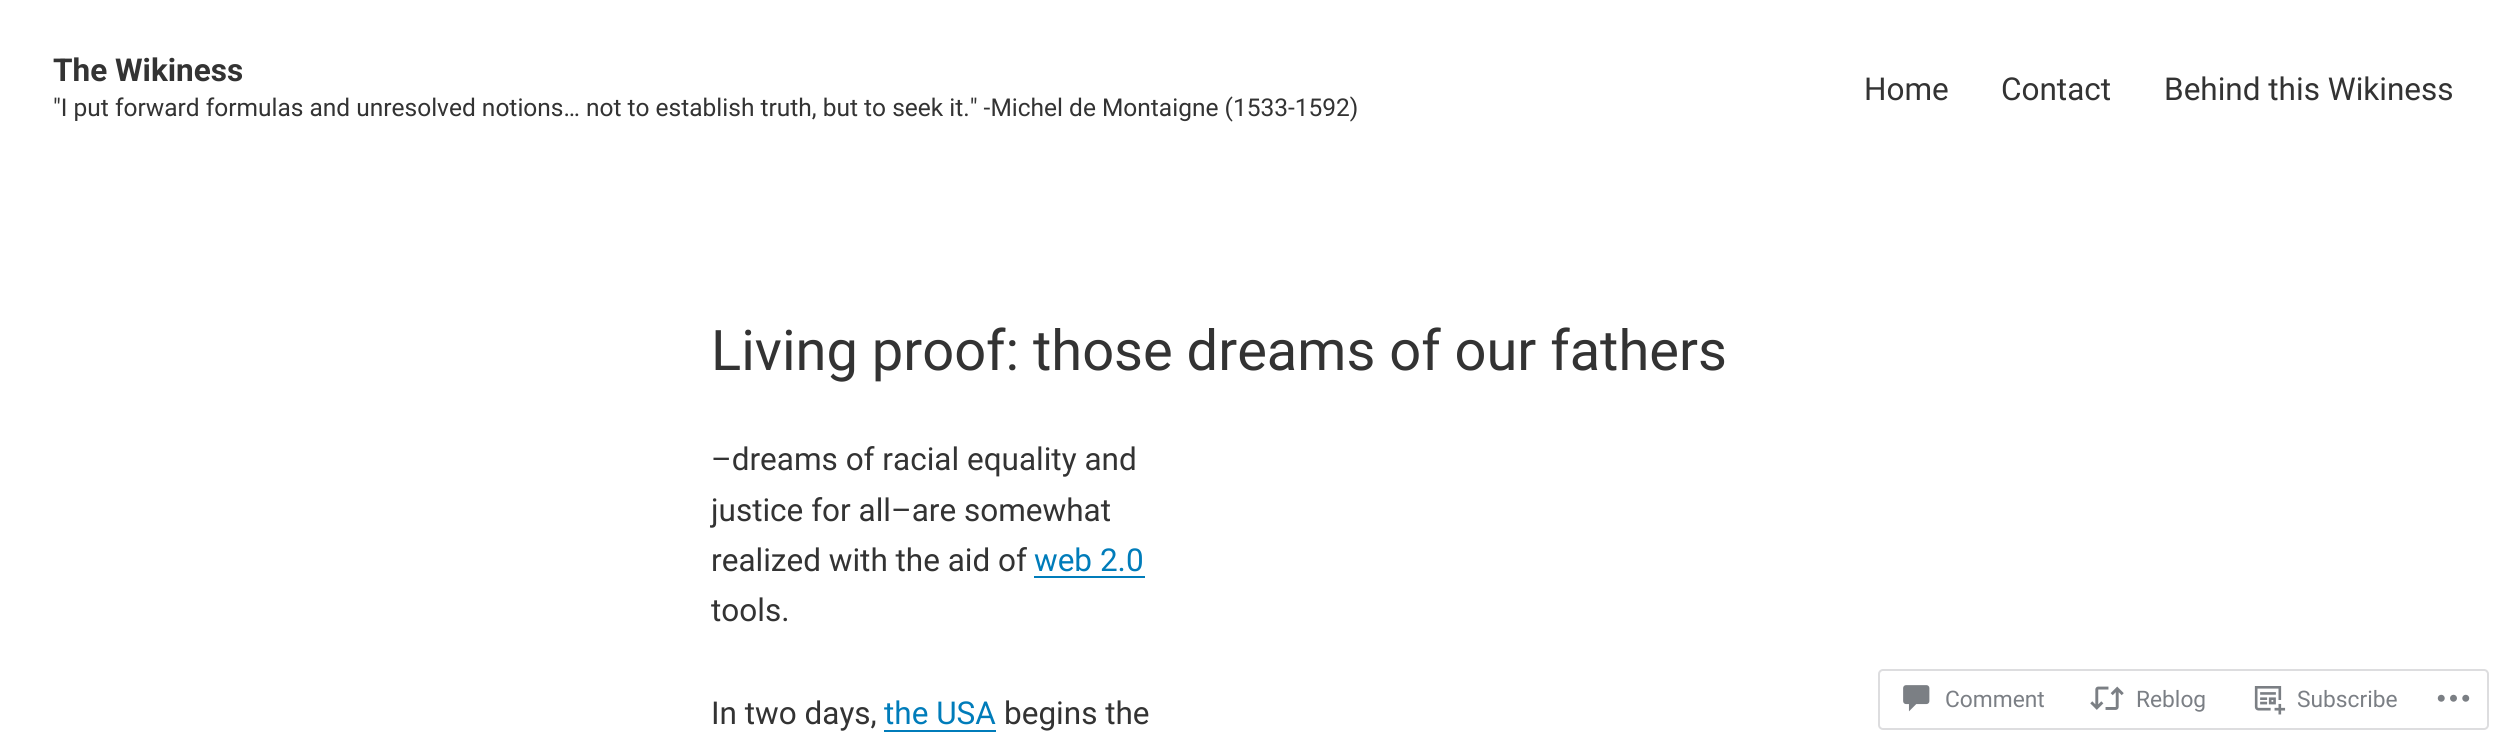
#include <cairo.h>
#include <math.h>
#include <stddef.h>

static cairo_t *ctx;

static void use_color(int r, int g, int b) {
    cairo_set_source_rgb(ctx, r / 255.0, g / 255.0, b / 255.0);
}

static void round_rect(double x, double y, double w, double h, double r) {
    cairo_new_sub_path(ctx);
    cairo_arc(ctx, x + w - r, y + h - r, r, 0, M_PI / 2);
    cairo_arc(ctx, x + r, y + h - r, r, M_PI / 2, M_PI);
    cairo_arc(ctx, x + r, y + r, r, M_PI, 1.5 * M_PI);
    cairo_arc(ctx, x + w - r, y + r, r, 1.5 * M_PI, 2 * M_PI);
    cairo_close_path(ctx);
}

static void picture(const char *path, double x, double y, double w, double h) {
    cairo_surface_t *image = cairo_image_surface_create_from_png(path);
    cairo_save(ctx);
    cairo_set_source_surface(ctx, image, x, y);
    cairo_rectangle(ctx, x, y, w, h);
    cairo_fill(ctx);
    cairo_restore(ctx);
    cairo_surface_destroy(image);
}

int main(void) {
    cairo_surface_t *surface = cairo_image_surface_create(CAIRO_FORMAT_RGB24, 2505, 746);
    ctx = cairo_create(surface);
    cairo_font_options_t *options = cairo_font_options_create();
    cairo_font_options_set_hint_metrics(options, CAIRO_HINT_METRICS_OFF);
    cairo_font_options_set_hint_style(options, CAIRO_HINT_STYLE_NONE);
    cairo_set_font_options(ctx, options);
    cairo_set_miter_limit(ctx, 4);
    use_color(255, 255, 255);
    cairo_paint(ctx);
    cairo_select_font_face(ctx, "Roboto", CAIRO_FONT_SLANT_NORMAL, CAIRO_FONT_WEIGHT_BOLD);
    cairo_set_font_size(ctx, 31.5);
    use_color(51, 51, 51);
    cairo_move_to(ctx, 53, 81);
    cairo_show_text(ctx, "The Wikiness");
    cairo_select_font_face(ctx, "Roboto", CAIRO_FONT_SLANT_NORMAL, CAIRO_FONT_WEIGHT_NORMAL);
    cairo_set_font_size(ctx, 24.5);
    cairo_move_to(ctx, 53, 116);
    cairo_show_text(ctx, "\"I put forward formulas and unresolved notions… not to establish truth, but to seek it.\" -Michel de Montaigne (1533-1592)");
    cairo_set_font_size(ctx, 31.5);
    cairo_move_to(ctx, 1864, 100);
    cairo_show_text(ctx, "Home");
    cairo_move_to(ctx, 2001, 100);
    cairo_show_text(ctx, "Contact");
    cairo_move_to(ctx, 2164, 100);
    cairo_show_text(ctx, "Behind this Wikiness");
    cairo_set_font_size(ctx, 56);
    cairo_move_to(ctx, 711, 370);
    cairo_show_text(ctx, "Living proof: those dreams of our fathers");
    cairo_set_font_size(ctx, 31.5);
    cairo_move_to(ctx, 711, 470);
    cairo_show_text(ctx, "–dreams of racial equality and");
    cairo_move_to(ctx, 711, 521);
    cairo_show_text(ctx, "justice for all–are somewhat");
    cairo_move_to(ctx, 711, 571);
    cairo_show_text(ctx, "realized with the aid of");
    use_color(0, 124, 186);
    cairo_move_to(ctx, 1034, 571);
    cairo_show_text(ctx, "web 2.0");
    cairo_rectangle(ctx, 1034, 576, 111, 2);
    cairo_fill(ctx);
    use_color(51, 51, 51);
    cairo_move_to(ctx, 711, 621);
    cairo_show_text(ctx, "tools.");
    cairo_move_to(ctx, 711, 724);
    cairo_show_text(ctx, "In two days,");
    use_color(0, 124, 186);
    cairo_move_to(ctx, 884, 724);
    cairo_show_text(ctx, "the USA");
    cairo_rectangle(ctx, 884, 730, 112, 2);
    cairo_fill(ctx);
    use_color(51, 51, 51);
    cairo_move_to(ctx, 1004, 724);
    cairo_show_text(ctx, "begins the");
    round_rect(1879, 670, 609, 59, 4);
    use_color(221, 221, 223);
    cairo_stroke(ctx);
    picture("img1.png", 1903, 685, 27, 27);
    cairo_set_font_size(ctx, 22.75);
    use_color(123, 127, 133);
    cairo_move_to(ctx, 1945, 707);
    cairo_show_text(ctx, "Comment");
    picture("img2.png", 2090, 686, 34, 24);
    cairo_move_to(ctx, 2136, 707);
    cairo_show_text(ctx, "Reblog");
    picture("img3.png", 2254, 686, 32, 29);
    cairo_move_to(ctx, 2297, 707);
    cairo_show_text(ctx, "Subscribe");
    picture("img4.png", 2437, 694, 33, 8);
    cairo_surface_write_to_png(surface, "result.png");
    cairo_font_options_destroy(options);
    cairo_destroy(ctx);
    cairo_surface_destroy(surface);
    return 0;
}
